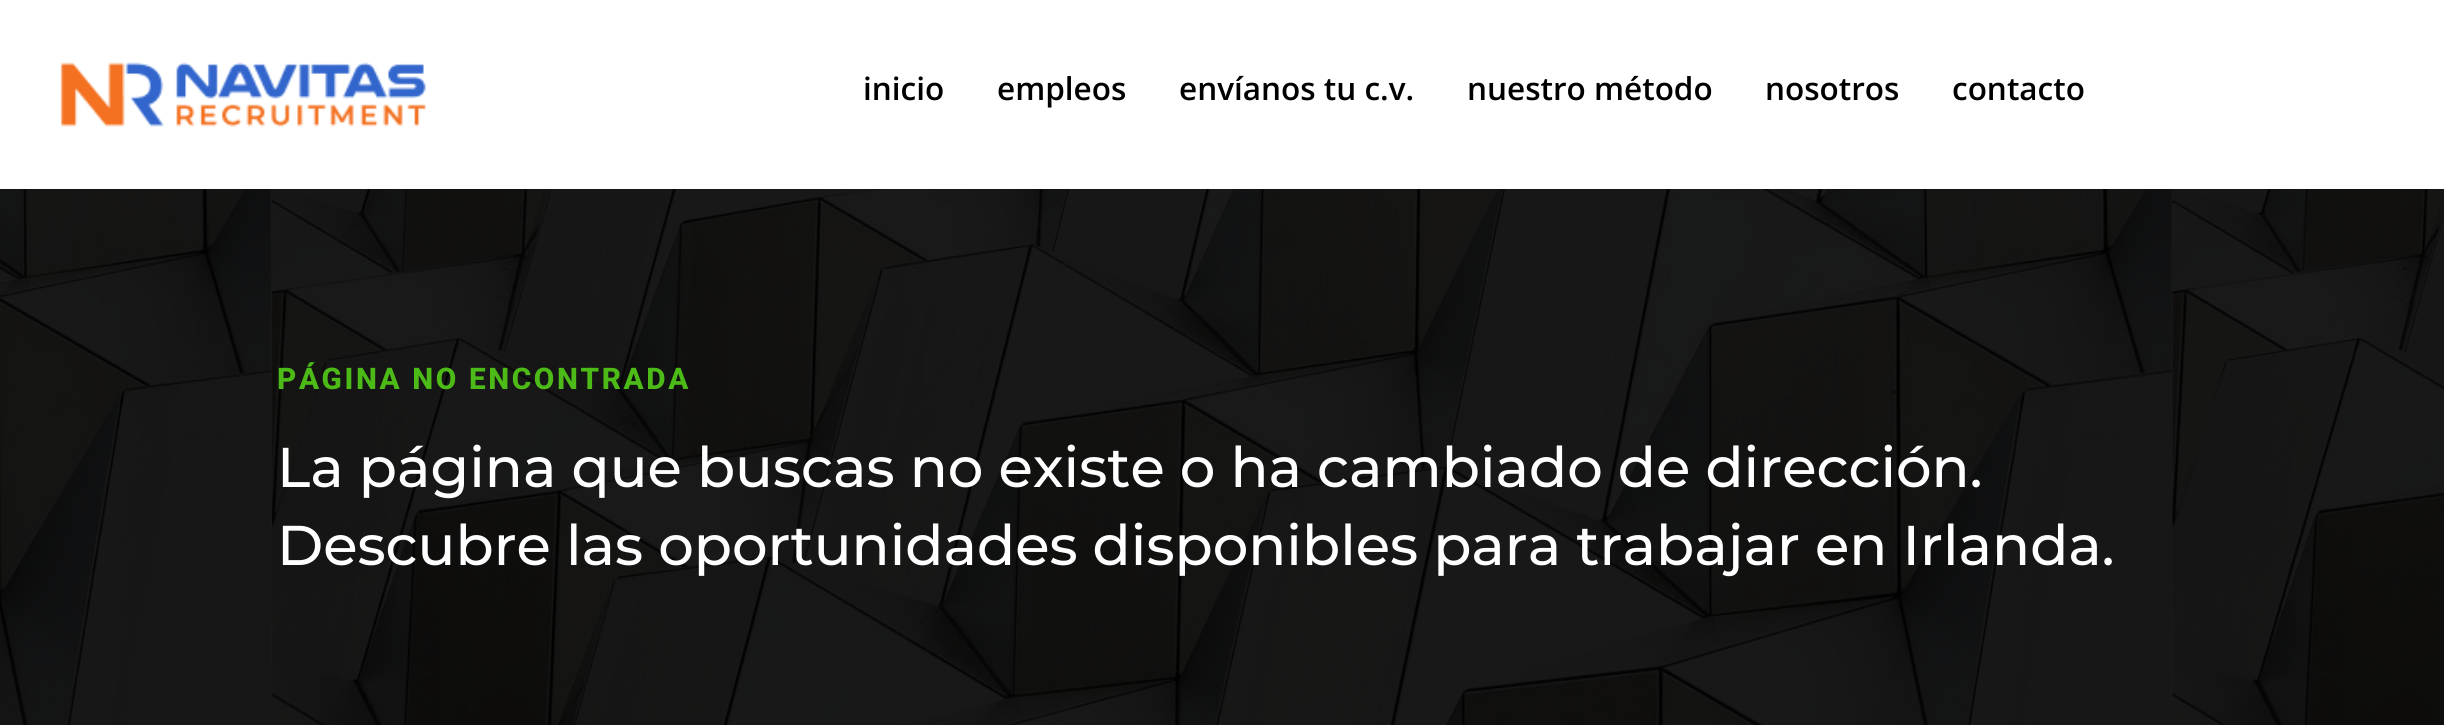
#include <cairo.h>
#include <math.h>
#include <stddef.h>

static cairo_t *ctx;

static void use_color(int r, int g, int b) {
    cairo_set_source_rgb(ctx, r / 255.0, g / 255.0, b / 255.0);
}

static void spaced_text(double x, double y, const char *s, double letter, double word) {
    cairo_move_to(ctx, x, y);
    while (*s) {
        char ch[5] = {0};
        int n = 0;
        do ch[n++] = *s++; while ((*s & 0xC0) == 0x80);
        cairo_show_text(ctx, ch);
        cairo_rel_move_to(ctx, letter + word * (*ch == ' '), 0);
    }
}

static void picture(const char *path, double x, double y, double w, double h) {
    cairo_surface_t *image = cairo_image_surface_create_from_png(path);
    cairo_save(ctx);
    cairo_set_source_surface(ctx, image, x, y);
    cairo_rectangle(ctx, x, y, w, h);
    cairo_fill(ctx);
    cairo_restore(ctx);
    cairo_surface_destroy(image);
}

int main(void) {
    cairo_surface_t *surface = cairo_image_surface_create(CAIRO_FORMAT_RGB24, 2444, 725);
    ctx = cairo_create(surface);
    cairo_font_options_t *options = cairo_font_options_create();
    cairo_font_options_set_hint_metrics(options, CAIRO_HINT_METRICS_OFF);
    cairo_font_options_set_hint_style(options, CAIRO_HINT_STYLE_NONE);
    cairo_set_font_options(ctx, options);
    cairo_set_miter_limit(ctx, 4);
    use_color(255, 255, 255);
    cairo_paint(ctx);
    picture("img1.png", 60, 62, 366, 65);
    cairo_select_font_face(ctx, "Open Sans SemiBold", CAIRO_FONT_SLANT_NORMAL, CAIRO_FONT_WEIGHT_NORMAL);
    cairo_set_font_size(ctx, 31.5);
    use_color(0, 0, 0);
    cairo_move_to(ctx, 863, 100);
    cairo_show_text(ctx, "inicio");
    cairo_move_to(ctx, 997, 100);
    cairo_show_text(ctx, "empleos");
    cairo_move_to(ctx, 1179, 100);
    cairo_show_text(ctx, "envíanos tu c.v.");
    cairo_move_to(ctx, 1467, 100);
    cairo_show_text(ctx, "nuestro método");
    cairo_move_to(ctx, 1765, 100);
    cairo_show_text(ctx, "nosotros");
    cairo_move_to(ctx, 1952, 100);
    cairo_show_text(ctx, "contacto");
    picture("img2.png", 0, 189, 2444, 536);
    cairo_select_font_face(ctx, "Roboto ExtraBold", CAIRO_FONT_SLANT_NORMAL, CAIRO_FONT_WEIGHT_NORMAL);
    cairo_set_font_size(ctx, 29.75);
    use_color(76, 187, 23);
    spaced_text(277, 389, "PÁGINA NO ENCONTRADA", 2.6, 0);
    cairo_select_font_face(ctx, "Montserrat Medium", CAIRO_FONT_SLANT_NORMAL, CAIRO_FONT_WEIGHT_NORMAL);
    cairo_set_font_size(ctx, 56);
    use_color(255, 255, 255);
    cairo_move_to(ctx, 277, 487);
    cairo_show_text(ctx, "La página que buscas no existe o ha cambiado de dirección.");
    cairo_move_to(ctx, 277, 565);
    cairo_show_text(ctx, "Descubre las oportunidades disponibles para trabajar en Irlanda.");
    cairo_surface_write_to_png(surface, "result.png");
    cairo_font_options_destroy(options);
    cairo_destroy(ctx);
    cairo_surface_destroy(surface);
    return 0;
}
